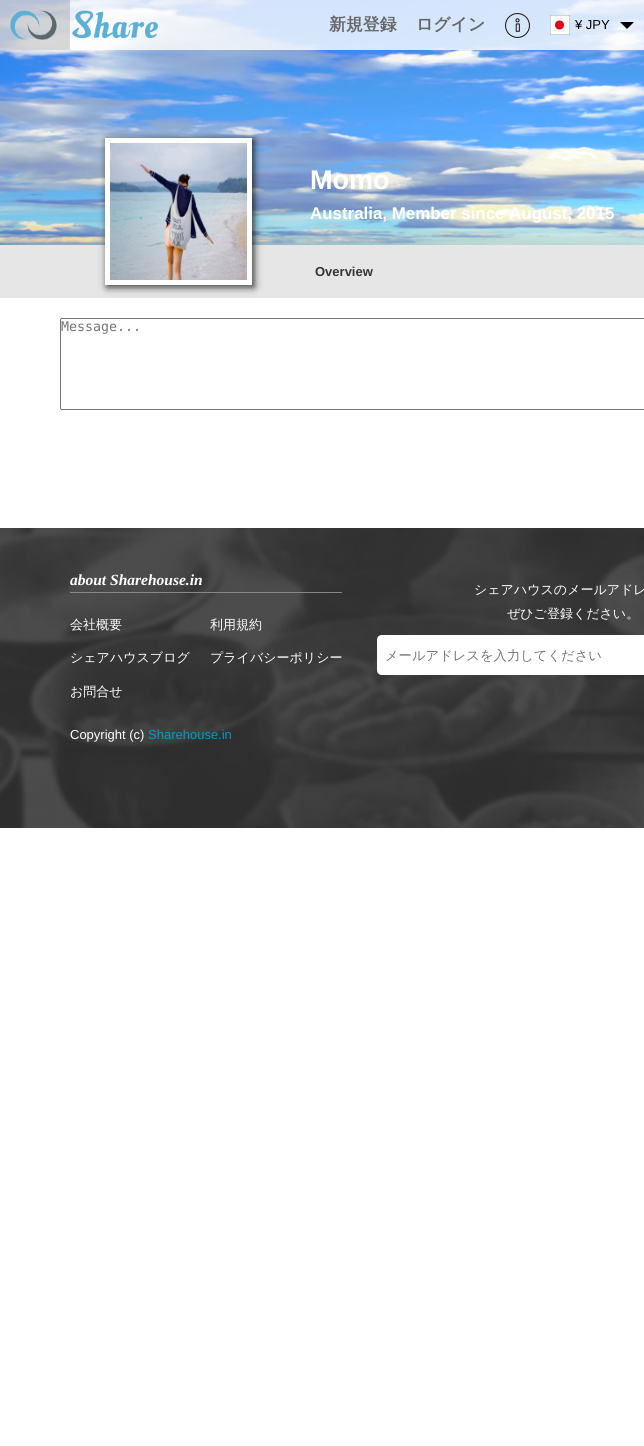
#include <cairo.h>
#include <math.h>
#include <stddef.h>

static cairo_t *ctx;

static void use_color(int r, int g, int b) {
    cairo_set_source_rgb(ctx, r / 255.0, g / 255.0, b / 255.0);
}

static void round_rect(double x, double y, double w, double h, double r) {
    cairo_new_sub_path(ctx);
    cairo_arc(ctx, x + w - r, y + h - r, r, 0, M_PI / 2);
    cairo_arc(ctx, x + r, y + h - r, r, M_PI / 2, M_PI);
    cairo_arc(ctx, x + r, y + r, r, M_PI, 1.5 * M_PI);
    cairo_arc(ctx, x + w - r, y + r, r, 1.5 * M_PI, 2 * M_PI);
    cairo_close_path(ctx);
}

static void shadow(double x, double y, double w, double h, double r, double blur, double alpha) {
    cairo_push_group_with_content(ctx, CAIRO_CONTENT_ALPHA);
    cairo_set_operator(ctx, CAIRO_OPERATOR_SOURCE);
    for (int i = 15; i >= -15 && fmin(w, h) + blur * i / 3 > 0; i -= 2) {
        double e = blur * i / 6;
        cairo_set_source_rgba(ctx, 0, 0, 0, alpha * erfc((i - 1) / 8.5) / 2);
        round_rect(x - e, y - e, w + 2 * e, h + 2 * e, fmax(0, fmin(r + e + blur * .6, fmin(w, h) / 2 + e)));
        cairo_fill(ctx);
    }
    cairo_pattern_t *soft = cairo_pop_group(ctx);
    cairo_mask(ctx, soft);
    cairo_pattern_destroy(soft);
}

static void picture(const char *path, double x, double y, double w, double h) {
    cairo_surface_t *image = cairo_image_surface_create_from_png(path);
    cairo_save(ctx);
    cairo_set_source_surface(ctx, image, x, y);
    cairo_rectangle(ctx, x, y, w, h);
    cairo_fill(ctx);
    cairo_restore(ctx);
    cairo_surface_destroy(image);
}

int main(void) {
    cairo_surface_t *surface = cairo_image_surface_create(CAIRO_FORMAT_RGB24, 644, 1446);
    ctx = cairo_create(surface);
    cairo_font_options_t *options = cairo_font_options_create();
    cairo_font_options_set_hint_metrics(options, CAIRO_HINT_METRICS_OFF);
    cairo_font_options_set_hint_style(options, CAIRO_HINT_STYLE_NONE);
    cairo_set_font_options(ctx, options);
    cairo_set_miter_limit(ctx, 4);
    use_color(255, 255, 255);
    cairo_paint(ctx);
    picture("img4.png", 0, 0, 644, 245);
    cairo_set_source_rgba(ctx, 1, 1, 1, 0.8);
    cairo_rectangle(ctx, 0, 0, 644, 50);
    cairo_fill(ctx);
    cairo_set_source_rgba(ctx, 0, 0, 0, 0.15);
    cairo_rectangle(ctx, 0, 0, 70, 50);
    cairo_fill(ctx);
    picture("img1.png", 10, 10, 47, 30);
    picture("img2.png", 72, 10, 86, 29);
    cairo_select_font_face(ctx, "WenQuanYi Zen Hei", CAIRO_FONT_SLANT_NORMAL, CAIRO_FONT_WEIGHT_BOLD);
    cairo_set_font_size(ctx, 16.9);
    use_color(102, 102, 102);
    cairo_move_to(ctx, 329, 30);
    cairo_show_text(ctx, "新規登録");
    cairo_move_to(ctx, 416, 30);
    cairo_show_text(ctx, "ログイン");
    picture("img3.png", 505, 13, 25, 25);
    use_color(255, 255, 255);
    cairo_rectangle(ctx, 550, 15, 20, 20);
    cairo_fill(ctx);
    cairo_save(ctx);
    cairo_rectangle(ctx, 550, 15, 20, 20);
    cairo_clip(ctx);
    cairo_new_path(ctx);
    cairo_move_to(ctx, 550, 15);
    cairo_line_to(ctx, 570, 15);
    cairo_line_to(ctx, 570, 35);
    cairo_line_to(ctx, 550, 35);
    cairo_close_path(ctx);
    use_color(112, 112, 112);
    cairo_set_line_width(ctx, 0.6);
    cairo_stroke(ctx);
    cairo_restore(ctx);
    use_color(230, 0, 18);
    cairo_arc(ctx, 559.5, 25, 4.5, 0, 2 * M_PI);
    cairo_fill(ctx);
    cairo_select_font_face(ctx, "Liberation Sans", CAIRO_FONT_SLANT_NORMAL, CAIRO_FONT_WEIGHT_NORMAL);
    cairo_set_font_size(ctx, 13);
    use_color(0, 0, 0);
    cairo_move_to(ctx, 575, 29);
    cairo_show_text(ctx, "¥ JPY");
    cairo_new_path(ctx);
    cairo_move_to(ctx, 620, 22);
    cairo_line_to(ctx, 634, 22);
    cairo_line_to(ctx, 627, 29);
    cairo_close_path(ctx);
    cairo_fill(ctx);
    use_color(230, 230, 230);
    cairo_rectangle(ctx, 0, 245, 644, 53);
    cairo_fill(ctx);
    use_color(0, 0, 0);
    shadow(107, 140, 147, 147, 0, 4, 0.8);
    use_color(255, 255, 255);
    cairo_rectangle(ctx, 105, 138, 147, 147);
    cairo_fill(ctx);
    picture("img5.png", 110, 143, 137, 137);
    cairo_select_font_face(ctx, "Liberation Sans", CAIRO_FONT_SLANT_NORMAL, CAIRO_FONT_WEIGHT_BOLD);
    cairo_set_font_size(ctx, 27);
    cairo_move_to(ctx, 310, 189);
    cairo_show_text(ctx, "Momo");
    cairo_set_font_size(ctx, 16.9);
    cairo_move_to(ctx, 310, 219);
    cairo_show_text(ctx, "Australia, Member since August, 2015");
    cairo_set_font_size(ctx, 13);
    use_color(52, 52, 52);
    cairo_move_to(ctx, 315, 276);
    cairo_show_text(ctx, "Overview");
    round_rect(60.5, 318.5, 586, 91, 1.5);
    use_color(118, 118, 118);
    cairo_set_line_width(ctx, 1);
    cairo_stroke(ctx);
    cairo_select_font_face(ctx, "DejaVu Sans Mono", CAIRO_FONT_SLANT_NORMAL, CAIRO_FONT_WEIGHT_NORMAL);
    cairo_set_font_size(ctx, 13.3);
    use_color(117, 117, 117);
    cairo_move_to(ctx, 61, 331);
    cairo_show_text(ctx, "Message...");
    picture("img6.png", 0, 528, 644, 300);
    use_color(136, 136, 136);
    cairo_rectangle(ctx, 70, 592, 272, 1);
    cairo_fill(ctx);
    cairo_select_font_face(ctx, "Liberation Serif", CAIRO_FONT_SLANT_ITALIC, CAIRO_FONT_WEIGHT_BOLD);
    cairo_set_font_size(ctx, 15.5);
    use_color(255, 255, 255);
    cairo_move_to(ctx, 70, 585);
    cairo_show_text(ctx, "about Sharehouse.in");
    cairo_select_font_face(ctx, "WenQuanYi Zen Hei Medium", CAIRO_FONT_SLANT_NORMAL, CAIRO_FONT_WEIGHT_NORMAL);
    cairo_set_font_size(ctx, 13);
    cairo_move_to(ctx, 70, 629);
    cairo_show_text(ctx, "会社概要");
    cairo_move_to(ctx, 70, 662);
    cairo_show_text(ctx, "シェアハウスブログ");
    cairo_move_to(ctx, 70, 696);
    cairo_show_text(ctx, "お問合せ");
    cairo_move_to(ctx, 210, 629);
    cairo_show_text(ctx, "利用規約");
    cairo_move_to(ctx, 210, 662);
    cairo_show_text(ctx, "プライバシーポリシー");
    cairo_move_to(ctx, 474, 594);
    cairo_show_text(ctx, "シェアハウスのメールアドレ");
    cairo_move_to(ctx, 507, 618);
    cairo_show_text(ctx, "ぜひご登録ください。");
    cairo_new_path(ctx);
    cairo_move_to(ctx, 382, 635);
    cairo_line_to(ctx, 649, 635);
    cairo_line_to(ctx, 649, 675);
    cairo_line_to(ctx, 382, 675);
    cairo_curve_to(ctx, 379, 675, 377, 673, 377, 670);
    cairo_line_to(ctx, 377, 640);
    cairo_curve_to(ctx, 377, 637, 379, 635, 382, 635);
    cairo_close_path(ctx);
    cairo_fill(ctx);
    cairo_set_font_size(ctx, 13.3);
    use_color(117, 117, 117);
    cairo_move_to(ctx, 385, 660);
    cairo_show_text(ctx, "メールアドレスを入力してください");
    cairo_select_font_face(ctx, "Liberation Sans", CAIRO_FONT_SLANT_NORMAL, CAIRO_FONT_WEIGHT_NORMAL);
    cairo_set_font_size(ctx, 13);
    use_color(255, 255, 255);
    cairo_move_to(ctx, 70, 739);
    cairo_show_text(ctx, "Copyright (c)");
    use_color(0, 153, 204);
    cairo_move_to(ctx, 148, 739);
    cairo_show_text(ctx, "Sharehouse.in");
    cairo_surface_write_to_png(surface, "result.png");
    cairo_font_options_destroy(options);
    cairo_destroy(ctx);
    cairo_surface_destroy(surface);
    return 0;
}
